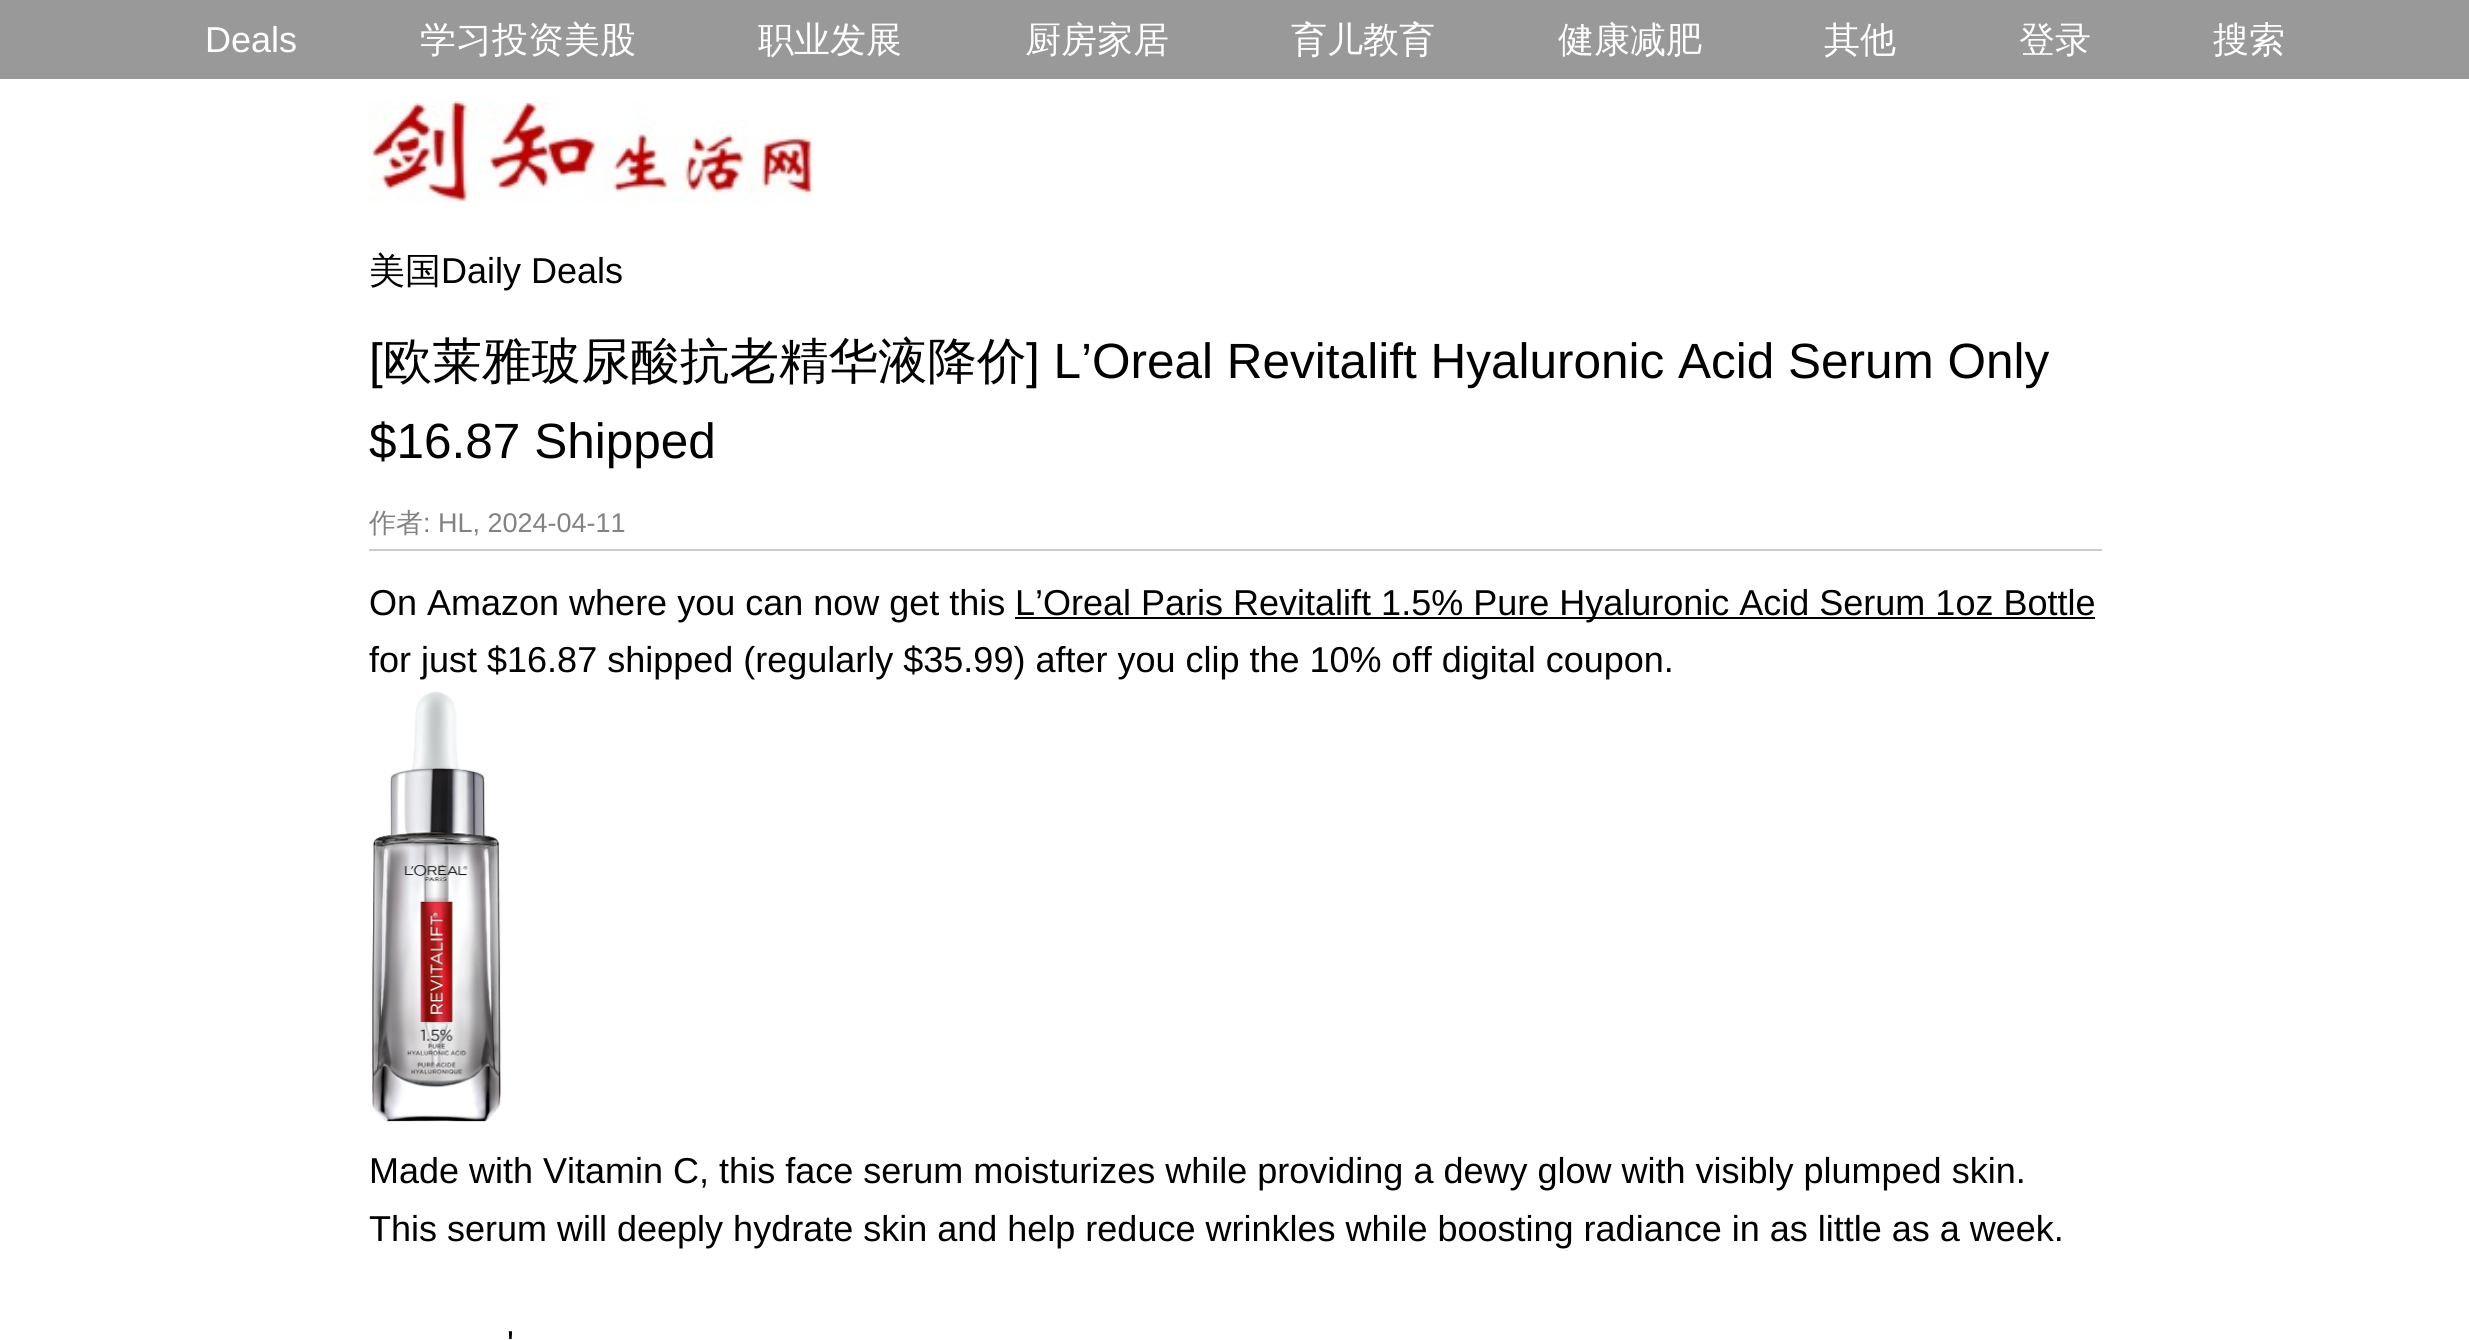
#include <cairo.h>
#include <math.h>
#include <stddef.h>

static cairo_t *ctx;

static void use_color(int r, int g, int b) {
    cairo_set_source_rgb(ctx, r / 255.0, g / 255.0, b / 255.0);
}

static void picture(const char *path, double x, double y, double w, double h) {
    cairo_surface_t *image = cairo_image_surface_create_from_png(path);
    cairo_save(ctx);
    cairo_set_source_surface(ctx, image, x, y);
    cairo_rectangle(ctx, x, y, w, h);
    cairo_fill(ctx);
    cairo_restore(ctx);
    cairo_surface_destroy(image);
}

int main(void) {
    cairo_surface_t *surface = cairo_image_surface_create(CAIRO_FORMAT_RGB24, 2469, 1340);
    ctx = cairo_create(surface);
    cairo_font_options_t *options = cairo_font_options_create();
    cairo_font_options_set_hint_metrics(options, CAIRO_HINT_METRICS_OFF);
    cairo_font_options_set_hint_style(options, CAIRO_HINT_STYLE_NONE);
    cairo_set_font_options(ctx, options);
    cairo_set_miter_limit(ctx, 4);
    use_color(255, 255, 255);
    cairo_paint(ctx);
    use_color(153, 153, 153);
    cairo_rectangle(ctx, 0, 0, 2469, 79);
    cairo_fill(ctx);
    cairo_select_font_face(ctx, "Liberation Sans", CAIRO_FONT_SLANT_NORMAL, CAIRO_FONT_WEIGHT_NORMAL);
    cairo_set_font_size(ctx, 36);
    use_color(255, 255, 255);
    cairo_move_to(ctx, 205, 52);
    cairo_show_text(ctx, "Deals");
    cairo_select_font_face(ctx, "WenQuanYi Zen Hei Medium", CAIRO_FONT_SLANT_NORMAL, CAIRO_FONT_WEIGHT_NORMAL);
    cairo_move_to(ctx, 420, 52);
    cairo_show_text(ctx, "学习投资美股");
    cairo_move_to(ctx, 758, 52);
    cairo_show_text(ctx, "职业发展");
    cairo_move_to(ctx, 1025, 52);
    cairo_show_text(ctx, "厨房家居");
    cairo_move_to(ctx, 1291, 52);
    cairo_show_text(ctx, "育儿教育");
    cairo_move_to(ctx, 1558, 52);
    cairo_show_text(ctx, "健康减肥");
    cairo_move_to(ctx, 1824, 52);
    cairo_show_text(ctx, "其他");
    cairo_move_to(ctx, 2019, 52);
    cairo_show_text(ctx, "登录");
    cairo_move_to(ctx, 2213, 52);
    cairo_show_text(ctx, "搜索");
    picture("img1.png", 369, 101, 446, 102);
    use_color(0, 0, 0);
    cairo_move_to(ctx, 369, 283);
    cairo_show_text(ctx, "美国");
    cairo_select_font_face(ctx, "Liberation Sans", CAIRO_FONT_SLANT_NORMAL, CAIRO_FONT_WEIGHT_NORMAL);
    cairo_move_to(ctx, 441, 283);
    cairo_show_text(ctx, "Daily Deals");
    cairo_set_font_size(ctx, 49.5);
    cairo_move_to(ctx, 369, 378);
    cairo_show_text(ctx, "[");
    cairo_select_font_face(ctx, "WenQuanYi Zen Hei Medium", CAIRO_FONT_SLANT_NORMAL, CAIRO_FONT_WEIGHT_NORMAL);
    cairo_move_to(ctx, 383, 378);
    cairo_show_text(ctx, "欧莱雅玻尿酸抗老精华液降价");
    cairo_select_font_face(ctx, "Liberation Sans", CAIRO_FONT_SLANT_NORMAL, CAIRO_FONT_WEIGHT_NORMAL);
    cairo_move_to(ctx, 1026, 378);
    cairo_show_text(ctx, "] L’Oreal Revitalift Hyaluronic Acid Serum Only");
    cairo_move_to(ctx, 369, 458);
    cairo_show_text(ctx, "$16.87 Shipped");
    cairo_select_font_face(ctx, "WenQuanYi Zen Hei Medium", CAIRO_FONT_SLANT_NORMAL, CAIRO_FONT_WEIGHT_NORMAL);
    cairo_set_font_size(ctx, 27);
    use_color(130, 130, 130);
    cairo_move_to(ctx, 369, 532);
    cairo_show_text(ctx, "作者");
    cairo_select_font_face(ctx, "Liberation Sans", CAIRO_FONT_SLANT_NORMAL, CAIRO_FONT_WEIGHT_NORMAL);
    cairo_move_to(ctx, 423, 532);
    cairo_show_text(ctx, ": HL, 2024-04-11");
    use_color(204, 204, 204);
    cairo_rectangle(ctx, 369, 549, 1733, 2);
    cairo_fill(ctx);
    cairo_set_font_size(ctx, 36);
    use_color(0, 0, 0);
    cairo_move_to(ctx, 369, 615);
    cairo_show_text(ctx, "On Amazon where you can now get this");
    cairo_rectangle(ctx, 1015, 617, 1080, 2);
    cairo_fill(ctx);
    cairo_move_to(ctx, 1015, 615);
    cairo_show_text(ctx, "L’Oreal Paris Revitalift 1.5% Pure Hyaluronic Acid Serum 1oz Bottle");
    cairo_move_to(ctx, 369, 672);
    cairo_show_text(ctx, "for just $16.87 shipped (regularly $35.99) after you clip the 10% off digital coupon.");
    picture("img2.png", 372, 691, 130, 431);
    cairo_move_to(ctx, 369, 1183);
    cairo_show_text(ctx, "Made with Vitamin C, this face serum moisturizes while providing a dewy glow with visibly plumped skin.");
    cairo_move_to(ctx, 369, 1241);
    cairo_show_text(ctx, "This serum will deeply hydrate skin and help reduce wrinkles while boosting radiance in as little as a week.");
    cairo_move_to(ctx, 507, 1356);
    cairo_show_text(ctx, "'");
    cairo_surface_write_to_png(surface, "result.png");
    cairo_font_options_destroy(options);
    cairo_destroy(ctx);
    cairo_surface_destroy(surface);
    return 0;
}
